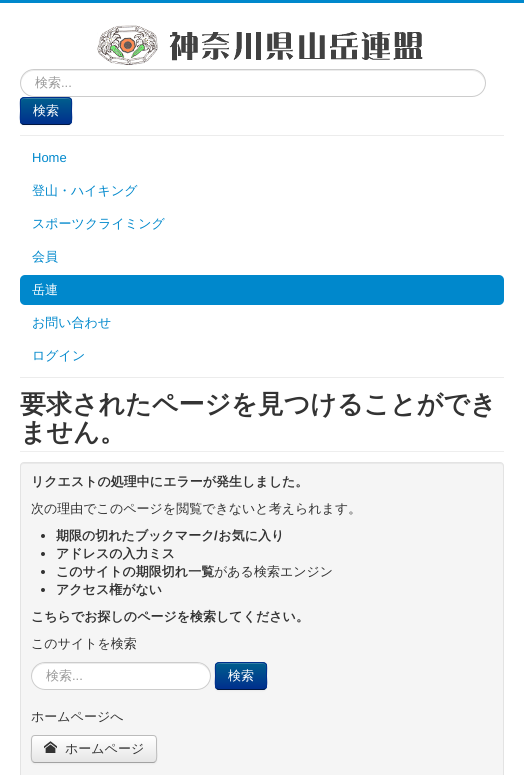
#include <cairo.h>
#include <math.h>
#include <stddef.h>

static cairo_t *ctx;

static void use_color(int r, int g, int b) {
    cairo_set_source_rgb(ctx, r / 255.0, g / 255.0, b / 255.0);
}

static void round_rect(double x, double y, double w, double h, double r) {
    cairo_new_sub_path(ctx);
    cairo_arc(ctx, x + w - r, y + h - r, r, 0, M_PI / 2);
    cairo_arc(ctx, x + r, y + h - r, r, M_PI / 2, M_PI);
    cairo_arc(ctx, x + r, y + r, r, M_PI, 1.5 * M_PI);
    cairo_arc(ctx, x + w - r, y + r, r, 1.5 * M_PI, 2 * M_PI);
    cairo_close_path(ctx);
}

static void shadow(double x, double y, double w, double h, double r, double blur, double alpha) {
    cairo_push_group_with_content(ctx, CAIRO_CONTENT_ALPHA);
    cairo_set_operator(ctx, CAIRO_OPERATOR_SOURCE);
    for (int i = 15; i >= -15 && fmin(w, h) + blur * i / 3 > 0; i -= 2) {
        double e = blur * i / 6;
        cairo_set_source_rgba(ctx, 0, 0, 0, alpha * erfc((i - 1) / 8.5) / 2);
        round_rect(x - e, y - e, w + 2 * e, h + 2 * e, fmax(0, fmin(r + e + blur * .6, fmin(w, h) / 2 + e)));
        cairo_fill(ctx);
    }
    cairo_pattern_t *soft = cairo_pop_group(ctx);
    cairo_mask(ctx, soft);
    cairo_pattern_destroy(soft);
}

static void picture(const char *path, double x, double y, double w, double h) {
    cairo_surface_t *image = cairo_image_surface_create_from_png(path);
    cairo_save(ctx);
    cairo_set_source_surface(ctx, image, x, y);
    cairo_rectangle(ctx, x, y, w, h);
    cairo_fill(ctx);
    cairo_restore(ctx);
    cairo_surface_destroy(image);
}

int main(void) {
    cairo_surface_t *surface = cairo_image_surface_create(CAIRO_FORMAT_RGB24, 524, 775);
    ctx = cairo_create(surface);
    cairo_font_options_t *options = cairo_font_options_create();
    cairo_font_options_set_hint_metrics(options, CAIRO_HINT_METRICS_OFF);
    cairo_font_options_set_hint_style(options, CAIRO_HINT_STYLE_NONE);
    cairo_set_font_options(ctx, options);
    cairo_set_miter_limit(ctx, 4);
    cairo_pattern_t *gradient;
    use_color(255, 255, 255);
    cairo_paint(ctx);
    use_color(0, 136, 204);
    cairo_rectangle(ctx, 0, 0, 524, 3);
    cairo_fill(ctx);
    picture("img1.png", 97, 25, 326, 40);
    use_color(236, 236, 236);
    cairo_new_path(ctx);
    cairo_move_to(ctx, 34, 71);
    cairo_line_to(ctx, 472, 71);
    cairo_curve_to(ctx, 479, 71, 484, 77, 485, 83);
    cairo_curve_to(ctx, 485, 76, 479, 70, 472, 70);
    cairo_line_to(ctx, 34, 70);
    cairo_curve_to(ctx, 27, 70, 21, 76, 21, 83);
    cairo_line_to(ctx, 21, 85);
    cairo_curve_to(ctx, 21, 78, 26, 71, 34, 71);
    cairo_close_path(ctx);
    cairo_fill(ctx);
    round_rect(20.5, 69.5, 465, 27, 13.5);
    use_color(204, 204, 204);
    cairo_set_line_width(ctx, 1);
    cairo_stroke(ctx);
    cairo_select_font_face(ctx, "WenQuanYi Zen Hei Medium", CAIRO_FONT_SLANT_NORMAL, CAIRO_FONT_WEIGHT_NORMAL);
    cairo_set_font_size(ctx, 13);
    use_color(153, 153, 153);
    cairo_move_to(ctx, 35, 87);
    cairo_show_text(ctx, "検索");
    cairo_select_font_face(ctx, "Liberation Sans", CAIRO_FONT_SLANT_NORMAL, CAIRO_FONT_WEIGHT_NORMAL);
    cairo_move_to(ctx, 61, 87);
    cairo_show_text(ctx, "...");
    use_color(0, 0, 0);
    shadow(20, 98, 52, 28, 4, 1, 0.05);
    use_color(0, 75, 141);
    round_rect(20, 97, 52, 28, 4);
    cairo_fill(ctx);
    cairo_save(ctx);
    round_rect(20, 97, 52, 28, 4);
    cairo_clip(ctx);
    gradient = cairo_pattern_create_linear(46, 98, 46, 124);
    cairo_pattern_add_color_stop_rgba(gradient, 0, 0, 0.369, 0.553, 1);
    cairo_pattern_add_color_stop_rgba(gradient, 1, 0, 0.184, 0.553, 1);
    cairo_set_source(ctx, gradient);
    cairo_pattern_destroy(gradient);
    cairo_rectangle(ctx, 20, 98, 52, 26);
    cairo_fill(ctx);
    cairo_restore(ctx);
    use_color(51, 125, 164);
    cairo_new_path(ctx);
    cairo_move_to(ctx, 24, 99);
    cairo_line_to(ctx, 68, 99);
    cairo_curve_to(ctx, 70, 99, 71, 100, 71, 102);
    cairo_curve_to(ctx, 71, 96, 65, 98, 61, 98);
    cairo_line_to(ctx, 31, 98);
    cairo_curve_to(ctx, 27, 98, 21, 96, 21, 102);
    cairo_curve_to(ctx, 21, 100, 22, 99, 24, 99);
    cairo_close_path(ctx);
    cairo_fill(ctx);
    cairo_new_path(ctx);
    cairo_move_to(ctx, 70.5, 123.5);
    cairo_curve_to(ctx, 70, 124, 69, 124.5, 68, 124.5);
    cairo_line_to(ctx, 24, 124.5);
    cairo_curve_to(ctx, 23, 124.5, 22, 124, 21.5, 123.5);
    use_color(0, 22, 65);
    cairo_stroke(ctx);
    cairo_new_path(ctx);
    cairo_move_to(ctx, 21.5, 123.5);
    cairo_curve_to(ctx, 19.5, 121, 20.5, 113.5, 20.5, 111);
    cairo_curve_to(ctx, 20.5, 97.5, 18, 97.5, 31.5, 97.5);
    cairo_line_to(ctx, 60.5, 97.5);
    cairo_curve_to(ctx, 74, 97.5, 71.5, 97.5, 71.5, 111);
    cairo_curve_to(ctx, 71.5, 113.5, 72.5, 121, 70.5, 123.5);
    use_color(0, 47, 141);
    cairo_stroke(ctx);
    cairo_select_font_face(ctx, "WenQuanYi Zen Hei Medium", CAIRO_FONT_SLANT_NORMAL, CAIRO_FONT_WEIGHT_NORMAL);
    use_color(255, 255, 255);
    cairo_move_to(ctx, 33, 115);
    cairo_show_text(ctx, "検索");
    use_color(236, 236, 236);
    cairo_rectangle(ctx, 20, 135, 484, 1);
    cairo_fill(ctx);
    cairo_rectangle(ctx, 20, 377, 484, 1);
    cairo_fill(ctx);
    cairo_select_font_face(ctx, "Liberation Sans", CAIRO_FONT_SLANT_NORMAL, CAIRO_FONT_WEIGHT_NORMAL);
    use_color(0, 136, 204);
    cairo_move_to(ctx, 32, 162);
    cairo_show_text(ctx, "Home");
    cairo_select_font_face(ctx, "WenQuanYi Zen Hei Medium", CAIRO_FONT_SLANT_NORMAL, CAIRO_FONT_WEIGHT_NORMAL);
    cairo_move_to(ctx, 32, 195);
    cairo_show_text(ctx, "登山・ハイキング");
    cairo_move_to(ctx, 32, 228);
    cairo_show_text(ctx, "スポーツクライミング");
    cairo_move_to(ctx, 32, 261);
    cairo_show_text(ctx, "会員");
    round_rect(20, 275, 484, 30, 5);
    cairo_fill(ctx);
    use_color(255, 255, 255);
    cairo_move_to(ctx, 32, 294);
    cairo_show_text(ctx, "岳連");
    use_color(0, 136, 204);
    cairo_move_to(ctx, 32, 327);
    cairo_show_text(ctx, "お問い合わせ");
    cairo_move_to(ctx, 32, 360);
    cairo_show_text(ctx, "ログイン");
    use_color(238, 238, 238);
    cairo_rectangle(ctx, 20, 451, 484, 1);
    cairo_fill(ctx);
    cairo_select_font_face(ctx, "WenQuanYi Zen Hei", CAIRO_FONT_SLANT_NORMAL, CAIRO_FONT_WEIGHT_BOLD);
    cairo_set_font_size(ctx, 26);
    use_color(51, 51, 51);
    cairo_move_to(ctx, 20, 413);
    cairo_show_text(ctx, "要求されたページを見つけることができ");
    cairo_move_to(ctx, 20, 441);
    cairo_show_text(ctx, "ません。");
    use_color(245, 245, 245);
    round_rect(20, 462, 484, 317, 4);
    cairo_fill(ctx);
    use_color(233, 233, 233);
    cairo_new_path(ctx);
    cairo_move_to(ctx, 24, 464);
    cairo_line_to(ctx, 500, 464);
    cairo_curve_to(ctx, 502, 464, 503, 465, 503, 467);
    cairo_line_to(ctx, 503, 466);
    cairo_curve_to(ctx, 503, 464, 502, 463, 500, 463);
    cairo_line_to(ctx, 24, 463);
    cairo_curve_to(ctx, 22, 463, 21, 464, 21, 466);
    cairo_line_to(ctx, 21, 467);
    cairo_curve_to(ctx, 21, 465, 22, 464, 24, 464);
    cairo_close_path(ctx);
    cairo_fill(ctx);
    round_rect(20.5, 462.5, 483, 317, 3.5);
    use_color(227, 227, 227);
    cairo_stroke(ctx);
    cairo_set_font_size(ctx, 13);
    use_color(51, 51, 51);
    cairo_move_to(ctx, 31, 486);
    cairo_show_text(ctx, "リクエストの処理中にエラーが発生しました。");
    cairo_select_font_face(ctx, "WenQuanYi Zen Hei Medium", CAIRO_FONT_SLANT_NORMAL, CAIRO_FONT_WEIGHT_NORMAL);
    cairo_move_to(ctx, 31, 513);
    cairo_show_text(ctx, "次の理由でこのページを閲覧できないと考えられます。");
    cairo_select_font_face(ctx, "WenQuanYi Zen Hei", CAIRO_FONT_SLANT_NORMAL, CAIRO_FONT_WEIGHT_BOLD);
    cairo_move_to(ctx, 56, 540);
    cairo_show_text(ctx, "期限の切れたブックマーク お気に入り");
    cairo_new_path(ctx);
    cairo_arc(ctx, 43, 536, 2, 0, 2 * M_PI);
    cairo_fill(ctx);
    cairo_select_font_face(ctx, "Liberation Sans", CAIRO_FONT_SLANT_NORMAL, CAIRO_FONT_WEIGHT_BOLD);
    cairo_move_to(ctx, 214, 540);
    cairo_show_text(ctx, "/");
    cairo_new_path(ctx);
    cairo_arc(ctx, 43, 554, 2, 0, 2 * M_PI);
    cairo_fill(ctx);
    cairo_select_font_face(ctx, "WenQuanYi Zen Hei", CAIRO_FONT_SLANT_NORMAL, CAIRO_FONT_WEIGHT_BOLD);
    cairo_move_to(ctx, 56, 558);
    cairo_show_text(ctx, "アドレスの入力ミス");
    cairo_new_path(ctx);
    cairo_arc(ctx, 43, 572, 2, 0, 2 * M_PI);
    cairo_fill(ctx);
    cairo_move_to(ctx, 56, 576);
    cairo_show_text(ctx, "このサイトの期限切れ一覧");
    cairo_select_font_face(ctx, "WenQuanYi Zen Hei Medium", CAIRO_FONT_SLANT_NORMAL, CAIRO_FONT_WEIGHT_NORMAL);
    cairo_move_to(ctx, 214, 576);
    cairo_show_text(ctx, "がある検索エンジン");
    cairo_new_path(ctx);
    cairo_arc(ctx, 43, 590, 2, 0, 2 * M_PI);
    cairo_fill(ctx);
    cairo_select_font_face(ctx, "WenQuanYi Zen Hei", CAIRO_FONT_SLANT_NORMAL, CAIRO_FONT_WEIGHT_BOLD);
    cairo_move_to(ctx, 56, 594);
    cairo_show_text(ctx, "アクセス権がない");
    cairo_move_to(ctx, 31, 621);
    cairo_show_text(ctx, "こちらでお探しのページを検索してください。");
    cairo_select_font_face(ctx, "WenQuanYi Zen Hei Medium", CAIRO_FONT_SLANT_NORMAL, CAIRO_FONT_WEIGHT_NORMAL);
    cairo_move_to(ctx, 31, 648);
    cairo_show_text(ctx, "このサイトを検索");
    use_color(255, 255, 255);
    round_rect(31, 662, 180, 28, 14);
    cairo_fill(ctx);
    use_color(236, 236, 236);
    cairo_new_path(ctx);
    cairo_move_to(ctx, 45, 664);
    cairo_line_to(ctx, 197, 664);
    cairo_curve_to(ctx, 204, 664, 210, 670, 210, 677);
    cairo_curve_to(ctx, 211, 657, 181, 663, 172, 663);
    cairo_line_to(ctx, 70, 663);
    cairo_curve_to(ctx, 61, 663, 31, 657, 32, 677);
    cairo_curve_to(ctx, 32, 670, 38, 664, 45, 664);
    cairo_close_path(ctx);
    cairo_fill(ctx);
    round_rect(31.5, 662.5, 179, 27, 13.5);
    use_color(204, 204, 204);
    cairo_stroke(ctx);
    use_color(153, 153, 153);
    cairo_move_to(ctx, 46, 680);
    cairo_show_text(ctx, "検索");
    cairo_select_font_face(ctx, "Liberation Sans", CAIRO_FONT_SLANT_NORMAL, CAIRO_FONT_WEIGHT_NORMAL);
    cairo_move_to(ctx, 72, 680);
    cairo_show_text(ctx, "...");
    use_color(0, 0, 0);
    shadow(215, 663, 52, 28, 4, 1, 0.05);
    use_color(0, 75, 141);
    round_rect(215, 662, 52, 28, 4);
    cairo_fill(ctx);
    cairo_save(ctx);
    round_rect(215, 662, 52, 28, 4);
    cairo_clip(ctx);
    gradient = cairo_pattern_create_linear(241, 663, 241, 689);
    cairo_pattern_add_color_stop_rgba(gradient, 0, 0, 0.369, 0.553, 1);
    cairo_pattern_add_color_stop_rgba(gradient, 1, 0, 0.184, 0.553, 1);
    cairo_set_source(ctx, gradient);
    cairo_pattern_destroy(gradient);
    cairo_rectangle(ctx, 215, 663, 52, 26);
    cairo_fill(ctx);
    cairo_restore(ctx);
    use_color(51, 125, 164);
    cairo_new_path(ctx);
    cairo_move_to(ctx, 219, 664);
    cairo_line_to(ctx, 263, 664);
    cairo_curve_to(ctx, 265, 664, 266, 665, 266, 667);
    cairo_curve_to(ctx, 266, 661, 260, 663, 256, 663);
    cairo_line_to(ctx, 226, 663);
    cairo_curve_to(ctx, 222, 663, 216, 661, 216, 667);
    cairo_curve_to(ctx, 216, 665, 217, 664, 219, 664);
    cairo_close_path(ctx);
    cairo_fill(ctx);
    cairo_new_path(ctx);
    cairo_move_to(ctx, 265.5, 688.5);
    cairo_curve_to(ctx, 265, 689, 264, 689.5, 263, 689.5);
    cairo_line_to(ctx, 219, 689.5);
    cairo_curve_to(ctx, 218, 689.5, 217, 689, 216.5, 688.5);
    use_color(0, 22, 65);
    cairo_stroke(ctx);
    cairo_new_path(ctx);
    cairo_move_to(ctx, 216.5, 688.5);
    cairo_curve_to(ctx, 214.5, 686, 215.5, 678.5, 215.5, 676);
    cairo_curve_to(ctx, 215.5, 662.5, 213, 662.5, 226.5, 662.5);
    cairo_line_to(ctx, 255.5, 662.5);
    cairo_curve_to(ctx, 269, 662.5, 266.5, 662.5, 266.5, 676);
    cairo_curve_to(ctx, 266.5, 678.5, 267.5, 686, 265.5, 688.5);
    use_color(0, 47, 141);
    cairo_stroke(ctx);
    cairo_select_font_face(ctx, "WenQuanYi Zen Hei Medium", CAIRO_FONT_SLANT_NORMAL, CAIRO_FONT_WEIGHT_NORMAL);
    use_color(255, 255, 255);
    cairo_move_to(ctx, 228, 680);
    cairo_show_text(ctx, "検索");
    use_color(51, 51, 51);
    cairo_move_to(ctx, 31, 721);
    cairo_show_text(ctx, "ホームページへ");
    use_color(0, 0, 0);
    shadow(31, 736, 126, 28, 4, 1, 0.05);
    cairo_save(ctx);
    round_rect(31, 735, 126, 28, 4);
    cairo_clip(ctx);
    gradient = cairo_pattern_create_linear(94, 736, 94, 762);
    cairo_pattern_add_color_stop_rgba(gradient, 0, 1, 1, 1, 1);
    cairo_pattern_add_color_stop_rgba(gradient, 1, 0.902, 0.902, 0.902, 1);
    cairo_set_source(ctx, gradient);
    cairo_pattern_destroy(gradient);
    cairo_rectangle(ctx, 31, 736, 126, 26);
    cairo_fill(ctx);
    cairo_restore(ctx);
    cairo_set_source_rgba(ctx, 1, 1, 1, 0.2);
    cairo_new_path(ctx);
    cairo_move_to(ctx, 35, 737);
    cairo_line_to(ctx, 153, 737);
    cairo_curve_to(ctx, 155, 737, 156, 738, 156, 740);
    cairo_curve_to(ctx, 156, 738, 155, 736, 153, 736);
    cairo_line_to(ctx, 55, 736);
    cairo_curve_to(ctx, 54, 736, 32, 731, 32, 740);
    cairo_curve_to(ctx, 32, 738, 33, 737, 35, 737);
    cairo_close_path(ctx);
    cairo_fill(ctx);
    cairo_new_path(ctx);
    cairo_move_to(ctx, 155.5, 761.5);
    cairo_curve_to(ctx, 155, 762, 154, 762.5, 153, 762.5);
    cairo_line_to(ctx, 35, 762.5);
    cairo_curve_to(ctx, 34, 762.5, 33, 762, 32.5, 761.5);
    use_color(162, 162, 162);
    cairo_stroke(ctx);
    cairo_new_path(ctx);
    cairo_move_to(ctx, 32.5, 761.5);
    cairo_curve_to(ctx, 30.5, 759, 31.5, 751.5, 31.5, 749);
    cairo_line_to(ctx, 31.5, 742.5);
    cairo_curve_to(ctx, 31.5, 739.5, 31, 735.5, 35, 735.5);
    cairo_line_to(ctx, 153, 735.5);
    cairo_curve_to(ctx, 157, 735.5, 156.5, 739.5, 156.5, 742.5);
    cairo_line_to(ctx, 156.5, 749);
    cairo_curve_to(ctx, 156.5, 751.5, 157.5, 759, 155.5, 761.5);
    use_color(187, 187, 187);
    cairo_stroke(ctx);
    picture("img2.png", 44, 741, 13, 12);
    use_color(51, 51, 51);
    cairo_move_to(ctx, 65, 753);
    cairo_show_text(ctx, "ホームページ");
    cairo_surface_write_to_png(surface, "result.png");
    cairo_font_options_destroy(options);
    cairo_destroy(ctx);
    cairo_surface_destroy(surface);
    return 0;
}
